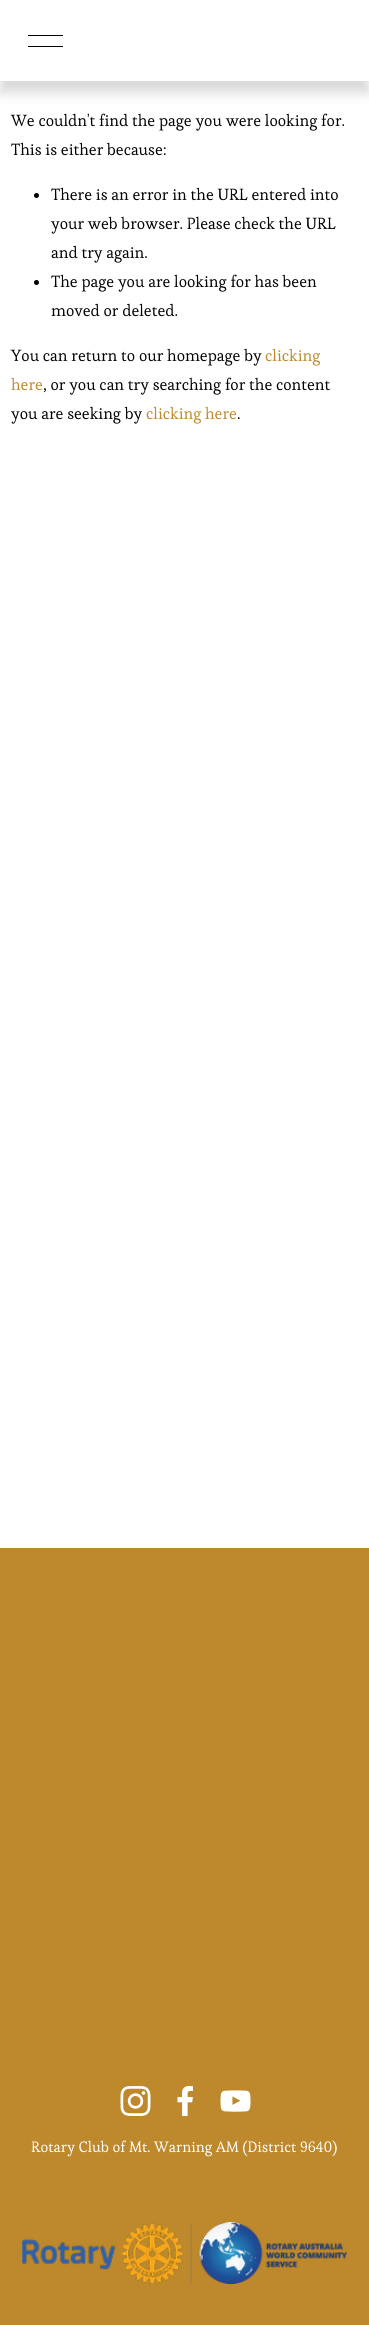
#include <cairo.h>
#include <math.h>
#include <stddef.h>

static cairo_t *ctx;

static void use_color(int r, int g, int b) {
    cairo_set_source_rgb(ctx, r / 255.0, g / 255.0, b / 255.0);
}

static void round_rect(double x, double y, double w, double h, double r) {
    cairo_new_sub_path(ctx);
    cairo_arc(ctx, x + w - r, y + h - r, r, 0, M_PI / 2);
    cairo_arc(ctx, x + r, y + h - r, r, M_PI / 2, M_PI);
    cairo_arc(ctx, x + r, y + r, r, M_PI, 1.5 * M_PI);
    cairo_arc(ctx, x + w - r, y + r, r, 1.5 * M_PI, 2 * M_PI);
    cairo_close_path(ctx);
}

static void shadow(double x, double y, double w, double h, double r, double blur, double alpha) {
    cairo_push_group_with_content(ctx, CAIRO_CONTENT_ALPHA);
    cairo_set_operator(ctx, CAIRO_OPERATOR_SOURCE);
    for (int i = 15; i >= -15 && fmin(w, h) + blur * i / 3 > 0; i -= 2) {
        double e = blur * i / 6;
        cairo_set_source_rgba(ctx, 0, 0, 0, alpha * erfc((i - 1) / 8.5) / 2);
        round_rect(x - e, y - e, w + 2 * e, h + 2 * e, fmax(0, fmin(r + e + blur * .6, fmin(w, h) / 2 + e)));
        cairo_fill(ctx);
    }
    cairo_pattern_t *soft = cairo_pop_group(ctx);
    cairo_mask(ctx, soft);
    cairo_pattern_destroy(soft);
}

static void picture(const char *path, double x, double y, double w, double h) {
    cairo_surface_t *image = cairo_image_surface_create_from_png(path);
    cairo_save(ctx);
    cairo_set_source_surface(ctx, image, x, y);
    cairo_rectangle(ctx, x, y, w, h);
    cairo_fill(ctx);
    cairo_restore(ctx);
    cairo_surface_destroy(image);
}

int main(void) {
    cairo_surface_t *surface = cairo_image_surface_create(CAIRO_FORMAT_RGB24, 369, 2325);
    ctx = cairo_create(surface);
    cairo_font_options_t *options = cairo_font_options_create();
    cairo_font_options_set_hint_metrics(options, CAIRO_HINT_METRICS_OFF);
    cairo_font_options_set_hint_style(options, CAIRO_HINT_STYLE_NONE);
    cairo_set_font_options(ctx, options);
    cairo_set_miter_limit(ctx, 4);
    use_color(255, 255, 255);
    cairo_paint(ctx);
    cairo_save(ctx);
    cairo_rectangle(ctx, 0, 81, 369, 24);
    cairo_clip(ctx);
    use_color(217, 217, 217);
    shadow(0, 12, 369, 81, 0, 6, 1);
    cairo_restore(ctx);
    use_color(0, 0, 0);
    cairo_rectangle(ctx, 28, 35, 35, 1);
    cairo_fill(ctx);
    cairo_rectangle(ctx, 28, 46, 35, 1);
    cairo_fill(ctx);
    cairo_select_font_face(ctx, "Esteban", CAIRO_FONT_SLANT_NORMAL, CAIRO_FONT_WEIGHT_NORMAL);
    cairo_set_font_size(ctx, 16.1);
    cairo_move_to(ctx, 11, 126);
    cairo_show_text(ctx, "We couldn't find the page you were looking for.");
    cairo_move_to(ctx, 11, 155);
    cairo_show_text(ctx, "This is either because:");
    cairo_new_path(ctx);
    cairo_arc(ctx, 36.5, 195.5, 2.5, 0, 2 * M_PI);
    cairo_fill(ctx);
    cairo_move_to(ctx, 51, 200);
    cairo_show_text(ctx, "There is an error in the URL entered into");
    cairo_move_to(ctx, 51, 229);
    cairo_show_text(ctx, "your web browser. Please check the URL");
    cairo_move_to(ctx, 51, 258);
    cairo_show_text(ctx, "and try again.");
    cairo_new_path(ctx);
    cairo_arc(ctx, 36.5, 282.5, 2.5, 0, 2 * M_PI);
    cairo_fill(ctx);
    cairo_move_to(ctx, 51, 287);
    cairo_show_text(ctx, "The page you are looking for has been");
    cairo_move_to(ctx, 51, 316);
    cairo_show_text(ctx, "moved or deleted.");
    cairo_move_to(ctx, 11, 361);
    cairo_show_text(ctx, "You can return to our homepage by");
    use_color(189, 137, 44);
    cairo_move_to(ctx, 265, 361);
    cairo_show_text(ctx, "clicking");
    cairo_move_to(ctx, 11, 390);
    cairo_show_text(ctx, "here");
    use_color(0, 0, 0);
    cairo_move_to(ctx, 43, 390);
    cairo_show_text(ctx, ", or you can try searching for the content");
    cairo_move_to(ctx, 11, 419);
    cairo_show_text(ctx, "you are seeking by");
    use_color(189, 137, 44);
    cairo_move_to(ctx, 146, 419);
    cairo_show_text(ctx, "clicking here");
    use_color(0, 0, 0);
    cairo_move_to(ctx, 237, 419);
    cairo_show_text(ctx, ".");
    use_color(189, 137, 44);
    cairo_rectangle(ctx, 0, 1548, 369, 777);
    cairo_fill(ctx);
    picture("img1.png", 120, 2086, 31, 30);
    picture("img2.png", 177, 2086, 16, 30);
    picture("img3.png", 220, 2090, 31, 22);
    cairo_set_font_size(ctx, 15);
    use_color(255, 255, 255);
    cairo_move_to(ctx, 31, 2152);
    cairo_show_text(ctx, "Rotary Club of Mt. Warning AM (District 9640)");
    picture("img4.png", 22, 2222, 325, 62);
    cairo_surface_write_to_png(surface, "result.png");
    cairo_font_options_destroy(options);
    cairo_destroy(ctx);
    cairo_surface_destroy(surface);
    return 0;
}
